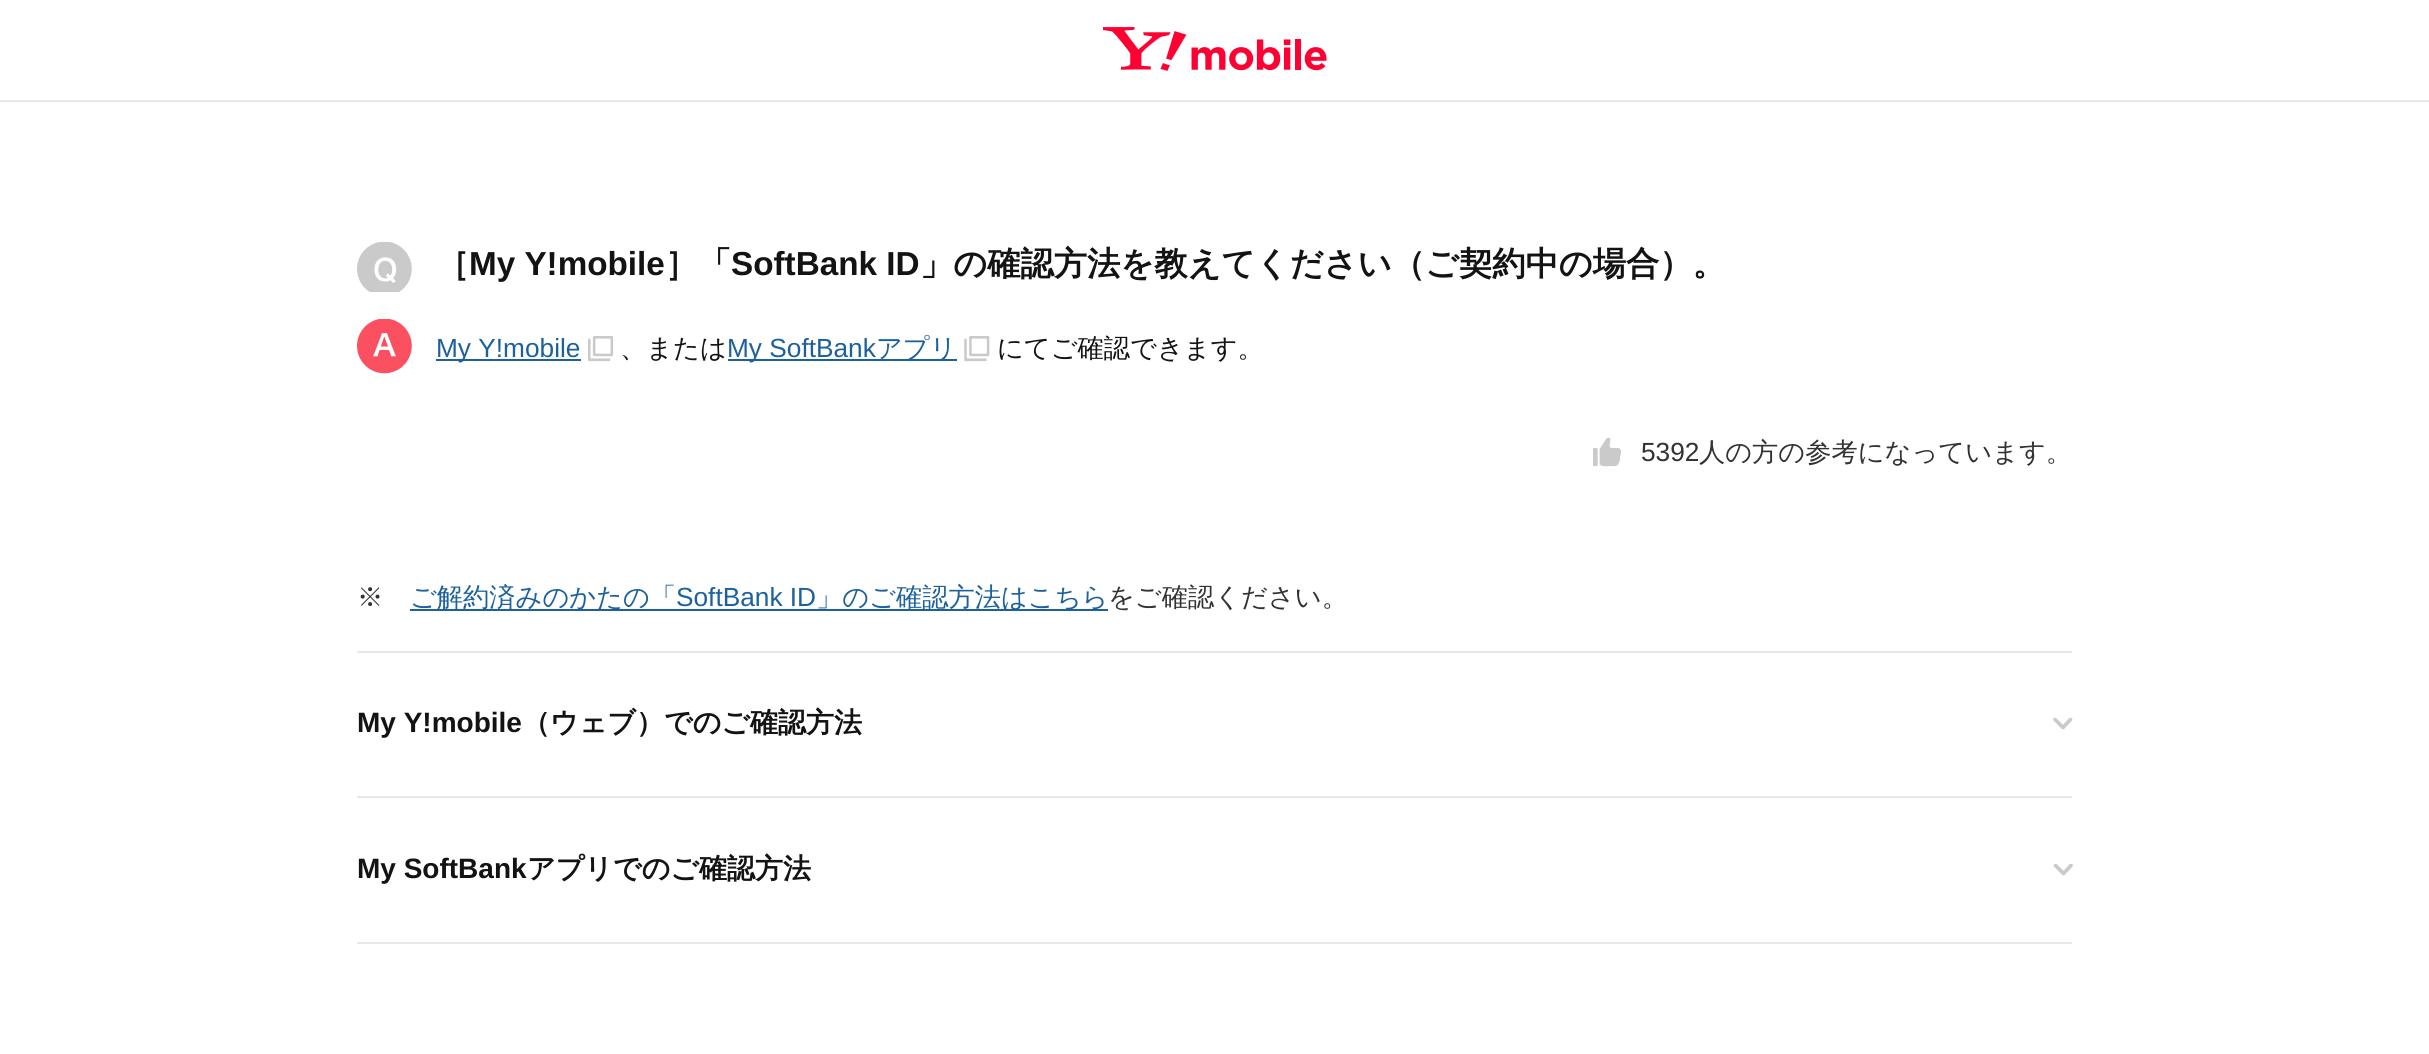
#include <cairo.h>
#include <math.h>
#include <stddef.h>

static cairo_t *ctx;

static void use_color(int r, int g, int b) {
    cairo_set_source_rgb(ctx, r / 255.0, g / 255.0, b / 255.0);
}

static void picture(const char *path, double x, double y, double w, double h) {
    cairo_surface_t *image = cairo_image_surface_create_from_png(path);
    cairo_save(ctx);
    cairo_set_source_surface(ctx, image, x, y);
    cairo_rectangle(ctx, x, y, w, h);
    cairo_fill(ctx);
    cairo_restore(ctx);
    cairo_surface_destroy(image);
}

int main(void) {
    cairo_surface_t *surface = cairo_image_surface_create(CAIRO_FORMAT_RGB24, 2429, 1054);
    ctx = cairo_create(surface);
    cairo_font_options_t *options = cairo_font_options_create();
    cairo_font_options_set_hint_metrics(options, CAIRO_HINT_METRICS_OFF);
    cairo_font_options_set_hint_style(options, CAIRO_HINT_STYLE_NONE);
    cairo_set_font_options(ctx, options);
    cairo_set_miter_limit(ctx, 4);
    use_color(255, 255, 255);
    cairo_paint(ctx);
    use_color(232, 232, 232);
    cairo_rectangle(ctx, 0, 100, 2429, 2);
    cairo_fill(ctx);
    picture("img1.png", 1103, 27, 224, 44);
    picture("img2.png", 357, 242, 55, 50);
    cairo_select_font_face(ctx, "WenQuanYi Zen Hei", CAIRO_FONT_SLANT_NORMAL, CAIRO_FONT_WEIGHT_BOLD);
    cairo_set_font_size(ctx, 33.25);
    use_color(19, 19, 19);
    cairo_move_to(ctx, 436, 275);
    cairo_show_text(ctx, "［");
    cairo_select_font_face(ctx, "Liberation Sans", CAIRO_FONT_SLANT_NORMAL, CAIRO_FONT_WEIGHT_BOLD);
    cairo_move_to(ctx, 469, 275);
    cairo_show_text(ctx, "My Y!mobile");
    cairo_select_font_face(ctx, "WenQuanYi Zen Hei", CAIRO_FONT_SLANT_NORMAL, CAIRO_FONT_WEIGHT_BOLD);
    cairo_move_to(ctx, 665, 275);
    cairo_show_text(ctx, "］「");
    cairo_select_font_face(ctx, "Liberation Sans", CAIRO_FONT_SLANT_NORMAL, CAIRO_FONT_WEIGHT_BOLD);
    cairo_move_to(ctx, 731, 275);
    cairo_show_text(ctx, "SoftBank ID");
    cairo_select_font_face(ctx, "WenQuanYi Zen Hei", CAIRO_FONT_SLANT_NORMAL, CAIRO_FONT_WEIGHT_BOLD);
    cairo_move_to(ctx, 920, 275);
    cairo_show_text(ctx, "」の確認方法を教えてください（ご契約中の場合）。");
    picture("img3.png", 357, 319, 55, 55);
    use_color(28, 97, 156);
    cairo_rectangle(ctx, 436, 359, 145, 2);
    cairo_fill(ctx);
    cairo_select_font_face(ctx, "Liberation Sans", CAIRO_FONT_SLANT_NORMAL, CAIRO_FONT_WEIGHT_NORMAL);
    cairo_set_font_size(ctx, 26.25);
    cairo_move_to(ctx, 436, 357);
    cairo_show_text(ctx, "My Y!mobile");
    picture("img4.png", 588, 336, 26, 26);
    cairo_select_font_face(ctx, "WenQuanYi Zen Hei Medium", CAIRO_FONT_SLANT_NORMAL, CAIRO_FONT_WEIGHT_NORMAL);
    use_color(19, 19, 19);
    cairo_move_to(ctx, 620, 357);
    cairo_show_text(ctx, "、または");
    use_color(28, 97, 156);
    cairo_rectangle(ctx, 728, 359, 229, 2);
    cairo_fill(ctx);
    cairo_select_font_face(ctx, "Liberation Sans", CAIRO_FONT_SLANT_NORMAL, CAIRO_FONT_WEIGHT_NORMAL);
    cairo_move_to(ctx, 727, 357);
    cairo_show_text(ctx, "My SoftBank");
    cairo_select_font_face(ctx, "WenQuanYi Zen Hei Medium", CAIRO_FONT_SLANT_NORMAL, CAIRO_FONT_WEIGHT_NORMAL);
    cairo_move_to(ctx, 876, 357);
    cairo_show_text(ctx, "アプリ");
    picture("img5.png", 964, 336, 26, 26);
    use_color(19, 19, 19);
    cairo_move_to(ctx, 997, 357);
    cairo_show_text(ctx, "にてご確認できます。");
    picture("img6.png", 1593, 438, 28, 29);
    cairo_select_font_face(ctx, "Liberation Sans", CAIRO_FONT_SLANT_NORMAL, CAIRO_FONT_WEIGHT_NORMAL);
    use_color(50, 50, 50);
    cairo_move_to(ctx, 1641, 461);
    cairo_show_text(ctx, "5392");
    cairo_select_font_face(ctx, "WenQuanYi Zen Hei Medium", CAIRO_FONT_SLANT_NORMAL, CAIRO_FONT_WEIGHT_NORMAL);
    cairo_move_to(ctx, 1699, 461);
    cairo_show_text(ctx, "人の方の参考になっています。");
    cairo_move_to(ctx, 357, 606);
    cairo_show_text(ctx, "※");
    use_color(28, 97, 156);
    cairo_rectangle(ctx, 410, 609, 698, 2);
    cairo_fill(ctx);
    cairo_move_to(ctx, 410, 606);
    cairo_show_text(ctx, "ご解約済みのかたの「");
    cairo_select_font_face(ctx, "Liberation Sans", CAIRO_FONT_SLANT_NORMAL, CAIRO_FONT_WEIGHT_NORMAL);
    cairo_move_to(ctx, 676, 606);
    cairo_show_text(ctx, "SoftBank ID");
    cairo_select_font_face(ctx, "WenQuanYi Zen Hei Medium", CAIRO_FONT_SLANT_NORMAL, CAIRO_FONT_WEIGHT_NORMAL);
    cairo_move_to(ctx, 816, 606);
    cairo_show_text(ctx, "」のご確認方法はこちら");
    use_color(50, 50, 50);
    cairo_move_to(ctx, 1108, 606);
    cairo_show_text(ctx, "をご確認ください。");
    use_color(232, 232, 232);
    cairo_rectangle(ctx, 357, 651, 1715, 2);
    cairo_fill(ctx);
    cairo_rectangle(ctx, 357, 796, 1715, 2);
    cairo_fill(ctx);
    cairo_select_font_face(ctx, "Liberation Sans", CAIRO_FONT_SLANT_NORMAL, CAIRO_FONT_WEIGHT_BOLD);
    cairo_set_font_size(ctx, 28);
    use_color(19, 19, 19);
    cairo_move_to(ctx, 357, 732);
    cairo_show_text(ctx, "My Y!mobile");
    cairo_select_font_face(ctx, "WenQuanYi Zen Hei", CAIRO_FONT_SLANT_NORMAL, CAIRO_FONT_WEIGHT_BOLD);
    cairo_move_to(ctx, 522, 732);
    cairo_show_text(ctx, "（ウェブ）でのご確認方法");
    cairo_save(ctx);
    cairo_new_path(ctx);
    cairo_move_to(ctx, 2073, 718);
    cairo_line_to(ctx, 2073, 730);
    cairo_line_to(ctx, 2052, 730);
    cairo_line_to(ctx, 2052, 718);
    cairo_close_path(ctx);
    cairo_clip(ctx);
    cairo_new_path(ctx);
    cairo_move_to(ctx, 2070.5, 719.5);
    cairo_line_to(ctx, 2063, 727.5);
    cairo_line_to(ctx, 2055, 719.5);
    use_color(202, 202, 202);
    cairo_set_line_width(ctx, 3.7);
    cairo_set_line_cap(ctx, CAIRO_LINE_CAP_ROUND);
    cairo_set_line_join(ctx, CAIRO_LINE_JOIN_ROUND);
    cairo_stroke(ctx);
    cairo_restore(ctx);
    use_color(232, 232, 232);
    cairo_rectangle(ctx, 357, 942, 1715, 2);
    cairo_fill(ctx);
    cairo_select_font_face(ctx, "Liberation Sans", CAIRO_FONT_SLANT_NORMAL, CAIRO_FONT_WEIGHT_BOLD);
    use_color(19, 19, 19);
    cairo_move_to(ctx, 357, 878);
    cairo_show_text(ctx, "My SoftBank");
    cairo_select_font_face(ctx, "WenQuanYi Zen Hei", CAIRO_FONT_SLANT_NORMAL, CAIRO_FONT_WEIGHT_BOLD);
    cairo_move_to(ctx, 527, 878);
    cairo_show_text(ctx, "アプリでのご確認方法");
    cairo_save(ctx);
    cairo_new_path(ctx);
    cairo_move_to(ctx, 2073, 864);
    cairo_line_to(ctx, 2073, 876);
    cairo_line_to(ctx, 2052, 876);
    cairo_line_to(ctx, 2052, 864);
    cairo_close_path(ctx);
    cairo_clip(ctx);
    cairo_new_path(ctx);
    cairo_move_to(ctx, 2071, 865.5);
    cairo_line_to(ctx, 2063.5, 873.5);
    cairo_line_to(ctx, 2055.5, 865.5);
    use_color(202, 202, 202);
    cairo_set_line_width(ctx, 3.7);
    cairo_set_line_cap(ctx, CAIRO_LINE_CAP_ROUND);
    cairo_set_line_join(ctx, CAIRO_LINE_JOIN_ROUND);
    cairo_stroke(ctx);
    cairo_restore(ctx);
    cairo_surface_write_to_png(surface, "result.png");
    cairo_font_options_destroy(options);
    cairo_destroy(ctx);
    cairo_surface_destroy(surface);
    return 0;
}
